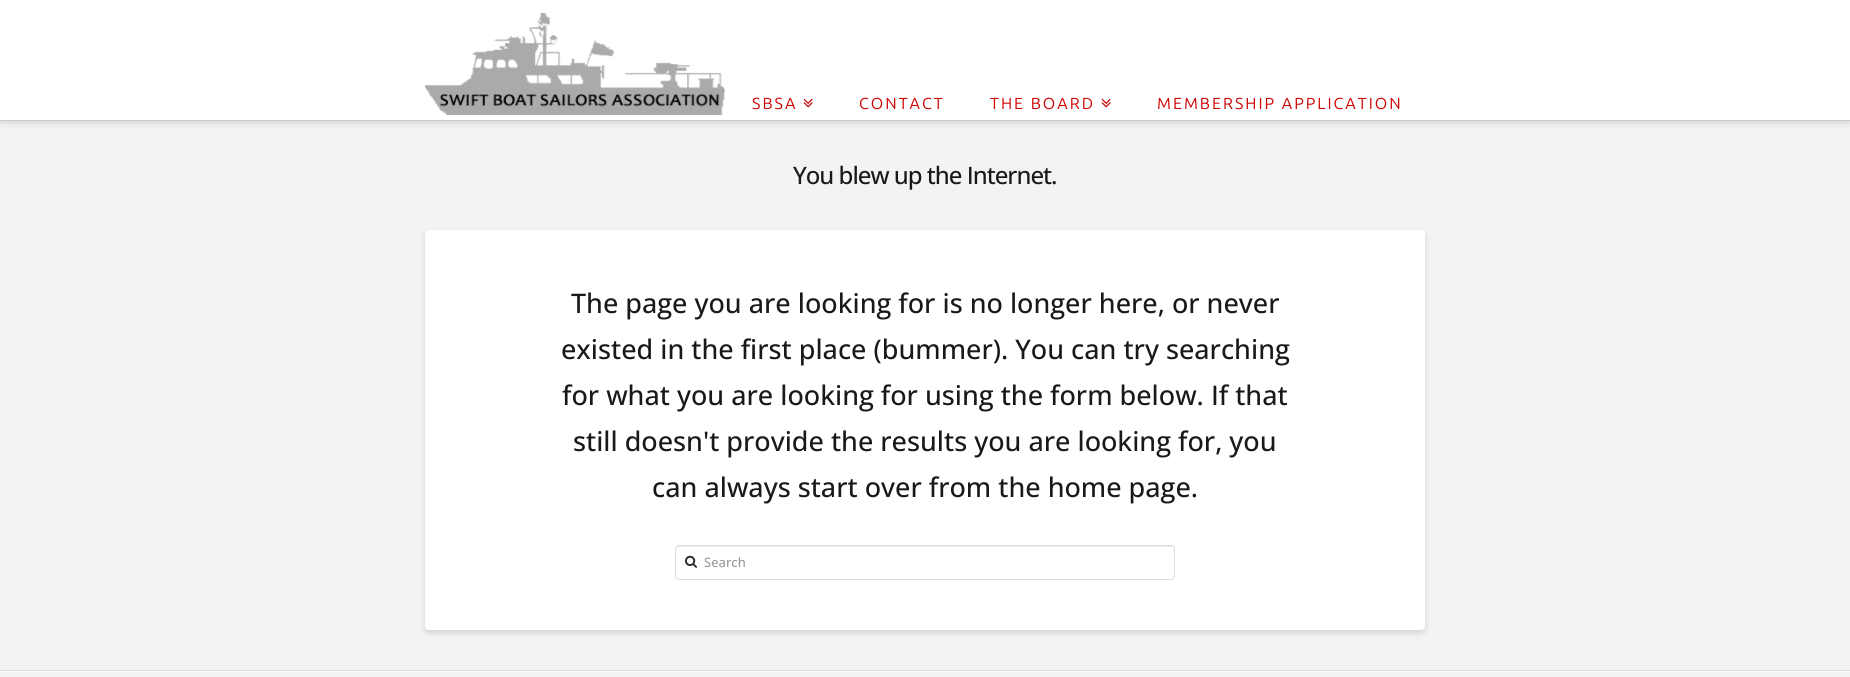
#include <cairo.h>
#include <math.h>
#include <stddef.h>

static cairo_t *ctx;

static void use_color(int r, int g, int b) {
    cairo_set_source_rgb(ctx, r / 255.0, g / 255.0, b / 255.0);
}

static void spaced_text(double x, double y, const char *s, double letter, double word) {
    cairo_move_to(ctx, x, y);
    while (*s) {
        char ch[5] = {0};
        int n = 0;
        do ch[n++] = *s++; while ((*s & 0xC0) == 0x80);
        cairo_show_text(ctx, ch);
        cairo_rel_move_to(ctx, letter + word * (*ch == ' '), 0);
    }
}

static void round_rect(double x, double y, double w, double h, double r) {
    cairo_new_sub_path(ctx);
    cairo_arc(ctx, x + w - r, y + h - r, r, 0, M_PI / 2);
    cairo_arc(ctx, x + r, y + h - r, r, M_PI / 2, M_PI);
    cairo_arc(ctx, x + r, y + r, r, M_PI, 1.5 * M_PI);
    cairo_arc(ctx, x + w - r, y + r, r, 1.5 * M_PI, 2 * M_PI);
    cairo_close_path(ctx);
}

static void shadow(double x, double y, double w, double h, double r, double blur, double alpha) {
    cairo_push_group_with_content(ctx, CAIRO_CONTENT_ALPHA);
    cairo_set_operator(ctx, CAIRO_OPERATOR_SOURCE);
    for (int i = 15; i >= -15 && fmin(w, h) + blur * i / 3 > 0; i -= 2) {
        double e = blur * i / 6;
        cairo_set_source_rgba(ctx, 0, 0, 0, alpha * erfc((i - 1) / 8.5) / 2);
        round_rect(x - e, y - e, w + 2 * e, h + 2 * e, fmax(0, fmin(r + e + blur * .6, fmin(w, h) / 2 + e)));
        cairo_fill(ctx);
    }
    cairo_pattern_t *soft = cairo_pop_group(ctx);
    cairo_mask(ctx, soft);
    cairo_pattern_destroy(soft);
}

static void picture(const char *path, double x, double y, double w, double h) {
    cairo_surface_t *image = cairo_image_surface_create_from_png(path);
    cairo_save(ctx);
    cairo_set_source_surface(ctx, image, x, y);
    cairo_rectangle(ctx, x, y, w, h);
    cairo_fill(ctx);
    cairo_restore(ctx);
    cairo_surface_destroy(image);
}

int main(void) {
    cairo_surface_t *surface = cairo_image_surface_create(CAIRO_FORMAT_RGB24, 1850, 677);
    ctx = cairo_create(surface);
    cairo_font_options_t *options = cairo_font_options_create();
    cairo_font_options_set_hint_metrics(options, CAIRO_HINT_METRICS_OFF);
    cairo_font_options_set_hint_style(options, CAIRO_HINT_STYLE_NONE);
    cairo_set_font_options(ctx, options);
    cairo_set_miter_limit(ctx, 4);
    use_color(243, 243, 243);
    cairo_paint(ctx);
    use_color(0, 0, 0);
    shadow(0, 2, 1850, 121, 0, 3, 0.13);
    use_color(255, 255, 255);
    cairo_rectangle(ctx, 0, 0, 1850, 120);
    cairo_fill(ctx);
    use_color(204, 204, 204);
    cairo_rectangle(ctx, 0, 120, 1850, 1);
    cairo_fill(ctx);
    picture("img1.png", 425, 13, 300, 102);
    cairo_select_font_face(ctx, "Ubuntu", CAIRO_FONT_SLANT_NORMAL, CAIRO_FONT_WEIGHT_NORMAL);
    cairo_set_font_size(ctx, 16);
    use_color(206, 0, 0);
    spaced_text(752, 109, "SBSA", 2, 0);
    picture("img2.png", 803, 98, 10, 10);
    spaced_text(859, 109, "CONTACT", 2, 0);
    spaced_text(990, 109, "THE BOARD", 2, 0);
    picture("img2.png", 1101, 98, 10, 10);
    spaced_text(1157, 109, "MEMBERSHIP APPLICATION", 2, 0);
    cairo_select_font_face(ctx, "Open Sans Medium", CAIRO_FONT_SLANT_NORMAL, CAIRO_FONT_WEIGHT_NORMAL);
    cairo_set_font_size(ctx, 24);
    use_color(25, 25, 25);
    spaced_text(793, 184, "You blew up the Internet.", -1, 0);
    use_color(0, 0, 0);
    shadow(425, 233, 1000, 400, 4, 3, 0.13);
    use_color(255, 255, 255);
    round_rect(425, 230, 1000, 400, 4);
    cairo_fill(ctx);
    cairo_set_font_size(ctx, 27);
    use_color(25, 25, 25);
    cairo_move_to(ctx, 571, 313);
    cairo_show_text(ctx, "The page you are looking for is no longer here, or never");
    cairo_move_to(ctx, 561, 359);
    cairo_show_text(ctx, "existed in the first place (bummer). You can try searching");
    cairo_move_to(ctx, 562, 405);
    cairo_show_text(ctx, "for what you are looking for using the form below. If that");
    cairo_move_to(ctx, 573, 451);
    cairo_show_text(ctx, "still doesn't provide the results you are looking for, you");
    cairo_move_to(ctx, 652, 497);
    cairo_show_text(ctx, "can always start over from the home page.");
    use_color(236, 236, 236);
    cairo_new_path(ctx);
    cairo_move_to(ctx, 679, 547);
    cairo_line_to(ctx, 1171, 547);
    cairo_curve_to(ctx, 1173, 547, 1174, 548, 1174, 550);
    cairo_curve_to(ctx, 1174, 548, 1173, 546, 1171, 546);
    cairo_line_to(ctx, 679, 546);
    cairo_curve_to(ctx, 677, 546, 676, 548, 676, 550);
    cairo_curve_to(ctx, 676, 548, 677, 547, 679, 547);
    cairo_close_path(ctx);
    cairo_fill(ctx);
    round_rect(675.5, 545.5, 499, 34, 3.5);
    use_color(221, 221, 221);
    cairo_set_line_width(ctx, 1);
    cairo_stroke(ctx);
    picture("img3.png", 685, 555, 12, 13);
    cairo_set_font_size(ctx, 13);
    use_color(153, 153, 153);
    cairo_move_to(ctx, 704, 567);
    cairo_show_text(ctx, "Search");
    use_color(253, 253, 253);
    cairo_rectangle(ctx, 0, 671, 1850, 1);
    cairo_fill(ctx);
    use_color(222, 222, 222);
    cairo_rectangle(ctx, 0, 670, 1850, 1);
    cairo_fill(ctx);
    cairo_surface_write_to_png(surface, "result.png");
    cairo_font_options_destroy(options);
    cairo_destroy(ctx);
    cairo_surface_destroy(surface);
    return 0;
}
